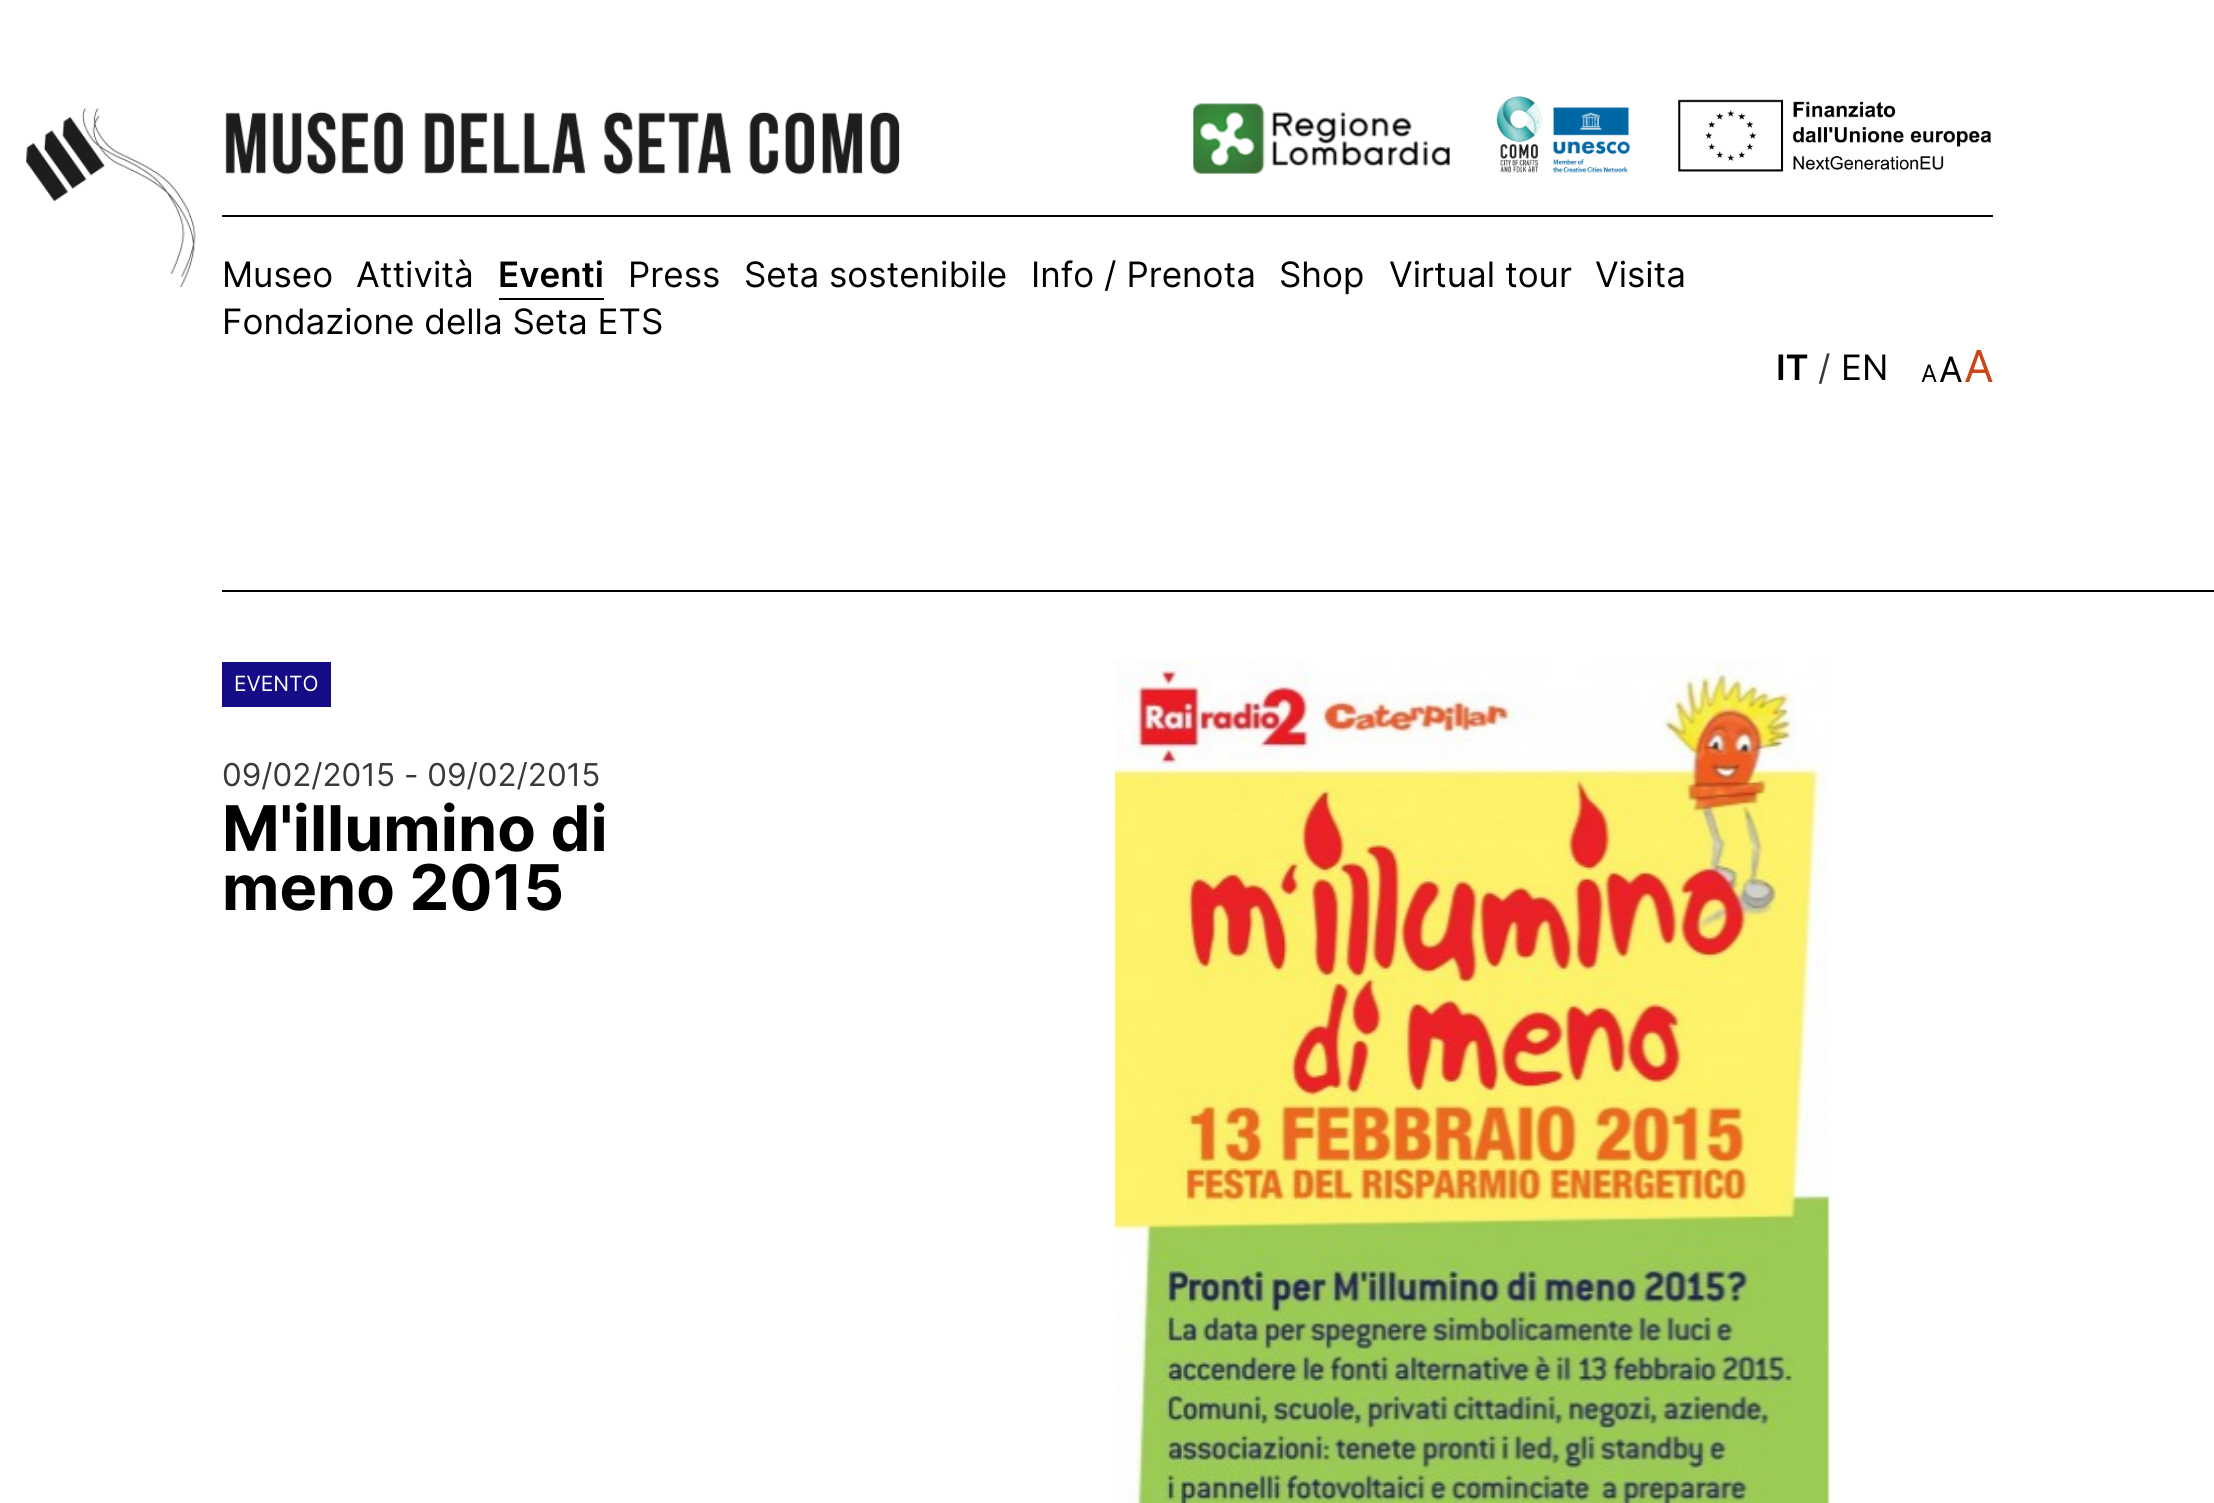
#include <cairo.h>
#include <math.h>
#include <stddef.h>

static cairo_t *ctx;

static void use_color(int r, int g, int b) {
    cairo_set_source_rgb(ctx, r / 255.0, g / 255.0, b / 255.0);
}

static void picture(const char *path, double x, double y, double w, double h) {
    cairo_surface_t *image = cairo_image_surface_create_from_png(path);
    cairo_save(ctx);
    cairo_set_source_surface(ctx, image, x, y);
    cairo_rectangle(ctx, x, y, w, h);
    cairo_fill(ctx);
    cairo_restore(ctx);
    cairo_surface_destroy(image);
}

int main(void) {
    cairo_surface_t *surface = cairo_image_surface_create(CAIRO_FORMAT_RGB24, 2214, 1503);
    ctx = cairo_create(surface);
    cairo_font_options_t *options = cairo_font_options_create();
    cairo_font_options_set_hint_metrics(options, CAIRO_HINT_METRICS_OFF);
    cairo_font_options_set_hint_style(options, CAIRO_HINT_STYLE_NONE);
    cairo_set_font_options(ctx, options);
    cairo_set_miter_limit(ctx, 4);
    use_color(255, 255, 255);
    cairo_paint(ctx);
    use_color(0, 0, 0);
    cairo_rectangle(ctx, 222, 215, 1771, 2);
    cairo_fill(ctx);
    picture("img1.png", 26, 108, 874, 179);
    picture("img2.png", 1193, 103, 257, 71);
    picture("img3.png", 1496, 96, 135, 77);
    picture("img4.png", 1678, 99, 314, 73);
    cairo_select_font_face(ctx, "Inter", CAIRO_FONT_SLANT_NORMAL, CAIRO_FONT_WEIGHT_NORMAL);
    cairo_set_font_size(ctx, 35);
    cairo_move_to(ctx, 222, 287);
    cairo_show_text(ctx, "Museo");
    cairo_move_to(ctx, 356, 287);
    cairo_show_text(ctx, "Attività");
    cairo_rectangle(ctx, 499, 298, 105, 2);
    cairo_fill(ctx);
    cairo_select_font_face(ctx, "Inter SemiBold", CAIRO_FONT_SLANT_NORMAL, CAIRO_FONT_WEIGHT_NORMAL);
    cairo_move_to(ctx, 498, 287);
    cairo_show_text(ctx, "Eventi");
    cairo_select_font_face(ctx, "Inter", CAIRO_FONT_SLANT_NORMAL, CAIRO_FONT_WEIGHT_NORMAL);
    cairo_move_to(ctx, 628, 287);
    cairo_show_text(ctx, "Press");
    cairo_move_to(ctx, 744, 287);
    cairo_show_text(ctx, "Seta sostenibile");
    cairo_move_to(ctx, 1031, 287);
    cairo_show_text(ctx, "Info / Prenota");
    cairo_move_to(ctx, 1279, 287);
    cairo_show_text(ctx, "Shop");
    cairo_move_to(ctx, 1389, 287);
    cairo_show_text(ctx, "Virtual tour");
    cairo_move_to(ctx, 1595, 287);
    cairo_show_text(ctx, "Visita");
    cairo_move_to(ctx, 222, 334);
    cairo_show_text(ctx, "Fondazione della Seta ETS");
    cairo_select_font_face(ctx, "Inter SemiBold", CAIRO_FONT_SLANT_NORMAL, CAIRO_FONT_WEIGHT_NORMAL);
    cairo_move_to(ctx, 1776, 380);
    cairo_show_text(ctx, "IT");
    cairo_select_font_face(ctx, "Inter", CAIRO_FONT_SLANT_NORMAL, CAIRO_FONT_WEIGHT_NORMAL);
    use_color(57, 57, 57);
    cairo_move_to(ctx, 1818, 380);
    cairo_show_text(ctx, "/");
    use_color(0, 0, 0);
    cairo_move_to(ctx, 1841, 380);
    cairo_show_text(ctx, "EN");
    cairo_set_font_size(ctx, 24);
    cairo_move_to(ctx, 1921, 382);
    cairo_show_text(ctx, "A");
    cairo_set_font_size(ctx, 35);
    cairo_move_to(ctx, 1939, 382);
    cairo_show_text(ctx, "A");
    cairo_set_font_size(ctx, 44);
    use_color(201, 71, 24);
    cairo_move_to(ctx, 1964, 382);
    cairo_show_text(ctx, "A");
    use_color(0, 0, 0);
    cairo_rectangle(ctx, 222, 590, 1992, 2);
    cairo_fill(ctx);
    use_color(21, 13, 135);
    cairo_rectangle(ctx, 222, 662, 109, 45);
    cairo_fill(ctx);
    cairo_set_font_size(ctx, 21);
    use_color(255, 255, 255);
    cairo_move_to(ctx, 234, 691);
    cairo_show_text(ctx, "EVENTO");
    cairo_set_font_size(ctx, 31.5);
    use_color(57, 57, 57);
    cairo_move_to(ctx, 222, 786);
    cairo_show_text(ctx, "09/02/2015 - 09/02/2015");
    cairo_select_font_face(ctx, "Inter", CAIRO_FONT_SLANT_NORMAL, CAIRO_FONT_WEIGHT_BOLD);
    cairo_set_font_size(ctx, 63);
    use_color(0, 0, 0);
    cairo_move_to(ctx, 222, 851);
    cairo_show_text(ctx, "M'illumino di");
    cairo_move_to(ctx, 222, 910);
    cairo_show_text(ctx, "meno 2015");
    picture("img5.png", 1115, 661, 714, 842);
    cairo_surface_write_to_png(surface, "result.png");
    cairo_font_options_destroy(options);
    cairo_destroy(ctx);
    cairo_surface_destroy(surface);
    return 0;
}
